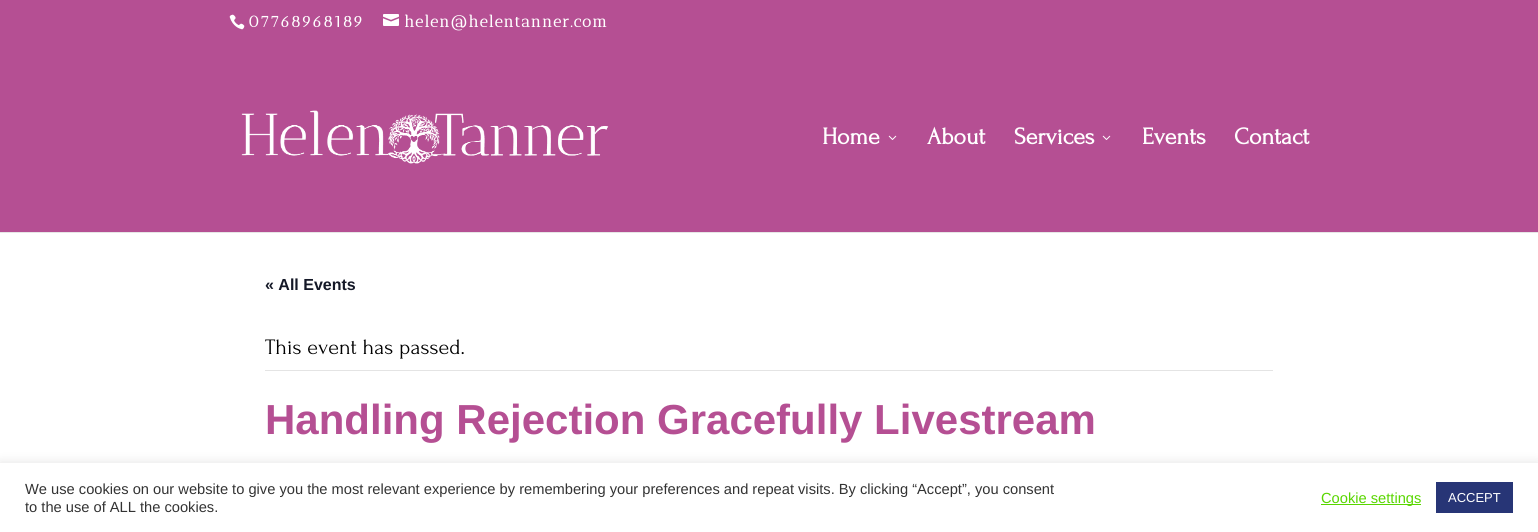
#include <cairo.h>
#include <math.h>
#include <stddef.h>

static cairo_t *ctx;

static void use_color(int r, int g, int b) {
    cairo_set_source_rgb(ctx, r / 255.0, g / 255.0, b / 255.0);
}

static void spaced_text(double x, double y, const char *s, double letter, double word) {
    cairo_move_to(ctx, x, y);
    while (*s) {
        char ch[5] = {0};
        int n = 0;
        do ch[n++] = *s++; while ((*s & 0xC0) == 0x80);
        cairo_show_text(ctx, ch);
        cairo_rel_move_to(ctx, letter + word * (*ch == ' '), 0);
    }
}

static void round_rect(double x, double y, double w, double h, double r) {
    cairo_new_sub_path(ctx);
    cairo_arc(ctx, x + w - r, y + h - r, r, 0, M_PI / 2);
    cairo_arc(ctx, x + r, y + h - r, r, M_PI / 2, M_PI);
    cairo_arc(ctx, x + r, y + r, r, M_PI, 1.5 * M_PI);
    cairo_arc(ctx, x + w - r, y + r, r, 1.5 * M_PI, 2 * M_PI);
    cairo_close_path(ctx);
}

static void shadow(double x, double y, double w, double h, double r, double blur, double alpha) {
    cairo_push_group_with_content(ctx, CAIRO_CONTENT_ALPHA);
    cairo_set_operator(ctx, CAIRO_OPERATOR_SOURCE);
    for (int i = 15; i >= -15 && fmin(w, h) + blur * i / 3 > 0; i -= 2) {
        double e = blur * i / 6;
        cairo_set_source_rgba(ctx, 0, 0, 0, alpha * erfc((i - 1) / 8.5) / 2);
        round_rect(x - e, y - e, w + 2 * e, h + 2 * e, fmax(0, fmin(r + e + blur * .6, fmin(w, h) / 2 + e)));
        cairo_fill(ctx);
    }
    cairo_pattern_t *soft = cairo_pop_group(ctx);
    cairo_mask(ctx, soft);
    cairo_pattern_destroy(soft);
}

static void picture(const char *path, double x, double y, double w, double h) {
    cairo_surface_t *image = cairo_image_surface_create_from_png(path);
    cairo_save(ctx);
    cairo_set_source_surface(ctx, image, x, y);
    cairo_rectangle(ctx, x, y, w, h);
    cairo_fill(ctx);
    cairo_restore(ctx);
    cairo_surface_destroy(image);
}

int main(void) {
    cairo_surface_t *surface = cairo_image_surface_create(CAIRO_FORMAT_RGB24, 1538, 532);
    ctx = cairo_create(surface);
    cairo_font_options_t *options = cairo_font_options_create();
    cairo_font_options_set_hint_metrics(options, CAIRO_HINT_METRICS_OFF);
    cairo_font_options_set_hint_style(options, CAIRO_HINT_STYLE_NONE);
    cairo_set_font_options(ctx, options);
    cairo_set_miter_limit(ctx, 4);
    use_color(255, 255, 255);
    cairo_paint(ctx);
    use_color(181, 79, 147);
    cairo_rectangle(ctx, 0, 0, 1538, 232);
    cairo_fill(ctx);
    picture("img1.png", 229, 14, 16, 16);
    cairo_select_font_face(ctx, "Antic Didone", CAIRO_FONT_SLANT_NORMAL, CAIRO_FONT_WEIGHT_BOLD);
    cairo_set_font_size(ctx, 16);
    use_color(255, 255, 255);
    spaced_text(248, 27, "07768968189", 1, 0);
    picture("img2.png", 383, 14, 16, 12);
    spaced_text(404, 27, "helen@helentanner.com", 1, 0);
    use_color(230, 230, 230);
    cairo_rectangle(ctx, 0, 232, 1538, 1);
    cairo_fill(ctx);
    picture("img3.png", 241, 110, 368, 54);
    cairo_select_font_face(ctx, "Forum", CAIRO_FONT_SLANT_NORMAL, CAIRO_FONT_WEIGHT_BOLD);
    cairo_set_font_size(ctx, 24);
    use_color(255, 255, 255);
    cairo_move_to(ctx, 822, 144);
    cairo_show_text(ctx, "Home");
    picture("img4.png", 888, 135, 9, 5);
    cairo_move_to(ctx, 927, 144);
    cairo_show_text(ctx, "About");
    cairo_move_to(ctx, 1014, 144);
    cairo_show_text(ctx, "Services");
    picture("img4.png", 1102, 135, 9, 5);
    cairo_move_to(ctx, 1142, 144);
    cairo_show_text(ctx, "Events");
    cairo_move_to(ctx, 1234, 144);
    cairo_show_text(ctx, "Contact");
    cairo_select_font_face(ctx, "Liberation Sans", CAIRO_FONT_SLANT_NORMAL, CAIRO_FONT_WEIGHT_BOLD);
    cairo_set_font_size(ctx, 16);
    use_color(20, 24, 39);
    cairo_move_to(ctx, 265, 290);
    cairo_show_text(ctx, "« All Events");
    use_color(228, 228, 228);
    cairo_rectangle(ctx, 265, 370, 1008, 1);
    cairo_fill(ctx);
    cairo_select_font_face(ctx, "Forum", CAIRO_FONT_SLANT_NORMAL, CAIRO_FONT_WEIGHT_NORMAL);
    cairo_set_font_size(ctx, 22);
    use_color(0, 0, 0);
    cairo_move_to(ctx, 265, 354);
    cairo_show_text(ctx, "This event has passed.");
    cairo_select_font_face(ctx, "Liberation Sans", CAIRO_FONT_SLANT_NORMAL, CAIRO_FONT_WEIGHT_BOLD);
    cairo_set_font_size(ctx, 42);
    use_color(181, 79, 147);
    cairo_move_to(ctx, 265, 434);
    cairo_show_text(ctx, "Handling Rejection Gracefully Livestream");
    use_color(172, 171, 171);
    shadow(0, 462, 1538, 69, 0, 5, 0.3);
    use_color(255, 255, 255);
    cairo_rectangle(ctx, 0, 463, 1538, 69);
    cairo_fill(ctx);
    cairo_select_font_face(ctx, "Liberation Sans", CAIRO_FONT_SLANT_NORMAL, CAIRO_FONT_WEIGHT_NORMAL);
    cairo_set_font_size(ctx, 14.67);
    use_color(51, 51, 51);
    cairo_move_to(ctx, 25, 494);
    cairo_show_text(ctx, "We use cookies on our website to give you the most relevant experience by remembering your preferences and repeat visits. By clicking “Accept”, you consent");
    cairo_move_to(ctx, 25, 512);
    cairo_show_text(ctx, "to the use of ALL the cookies.");
    use_color(89, 214, 0);
    cairo_rectangle(ctx, 1321, 504, 100, 1);
    cairo_fill(ctx);
    cairo_move_to(ctx, 1321, 503);
    cairo_show_text(ctx, "Cookie settings");
    use_color(39, 53, 118);
    cairo_rectangle(ctx, 1436, 482, 77, 31);
    cairo_fill(ctx);
    cairo_set_font_size(ctx, 13);
    use_color(255, 255, 255);
    cairo_move_to(ctx, 1448, 502);
    cairo_show_text(ctx, "ACCEPT");
    cairo_surface_write_to_png(surface, "result.png");
    cairo_font_options_destroy(options);
    cairo_destroy(ctx);
    cairo_surface_destroy(surface);
    return 0;
}
